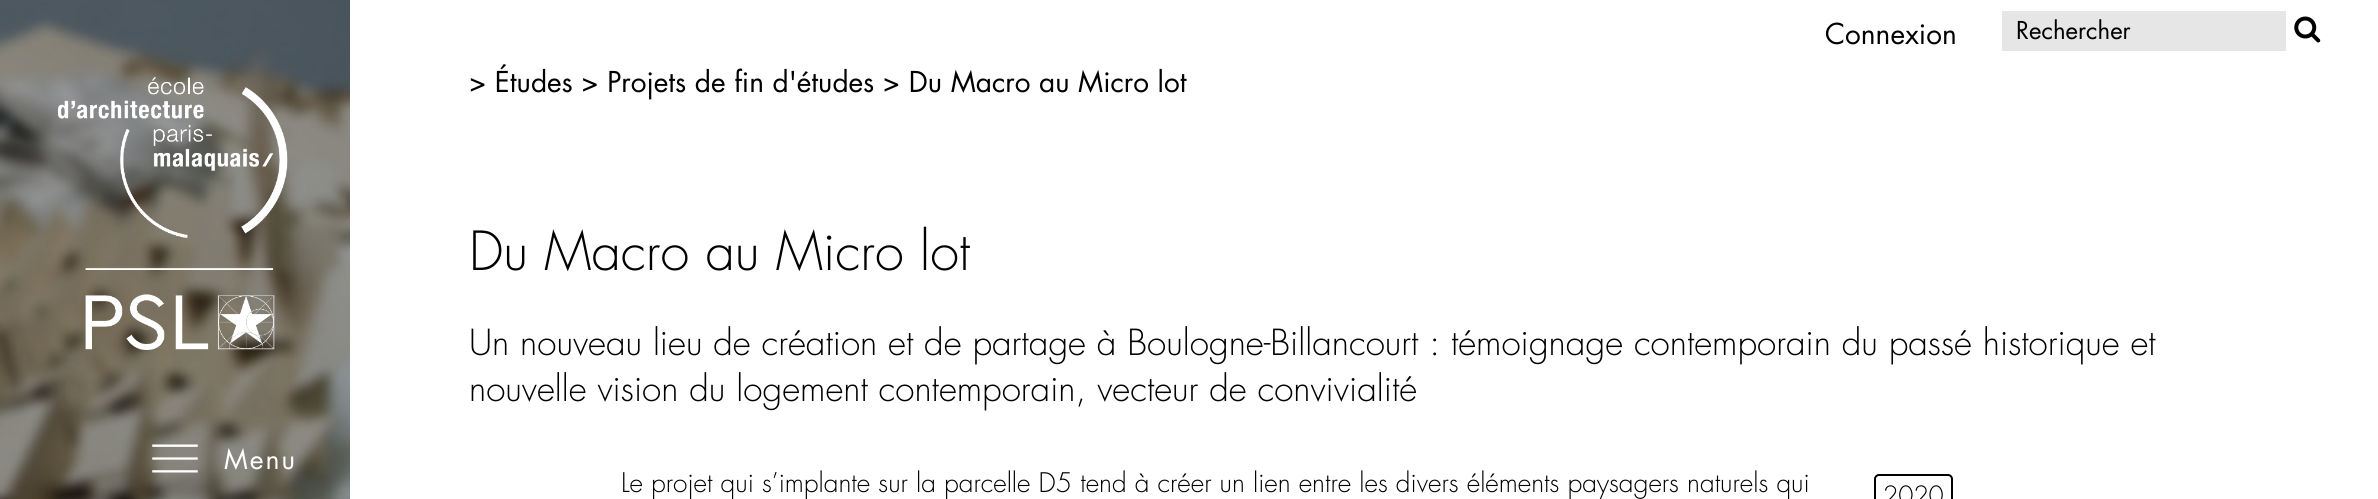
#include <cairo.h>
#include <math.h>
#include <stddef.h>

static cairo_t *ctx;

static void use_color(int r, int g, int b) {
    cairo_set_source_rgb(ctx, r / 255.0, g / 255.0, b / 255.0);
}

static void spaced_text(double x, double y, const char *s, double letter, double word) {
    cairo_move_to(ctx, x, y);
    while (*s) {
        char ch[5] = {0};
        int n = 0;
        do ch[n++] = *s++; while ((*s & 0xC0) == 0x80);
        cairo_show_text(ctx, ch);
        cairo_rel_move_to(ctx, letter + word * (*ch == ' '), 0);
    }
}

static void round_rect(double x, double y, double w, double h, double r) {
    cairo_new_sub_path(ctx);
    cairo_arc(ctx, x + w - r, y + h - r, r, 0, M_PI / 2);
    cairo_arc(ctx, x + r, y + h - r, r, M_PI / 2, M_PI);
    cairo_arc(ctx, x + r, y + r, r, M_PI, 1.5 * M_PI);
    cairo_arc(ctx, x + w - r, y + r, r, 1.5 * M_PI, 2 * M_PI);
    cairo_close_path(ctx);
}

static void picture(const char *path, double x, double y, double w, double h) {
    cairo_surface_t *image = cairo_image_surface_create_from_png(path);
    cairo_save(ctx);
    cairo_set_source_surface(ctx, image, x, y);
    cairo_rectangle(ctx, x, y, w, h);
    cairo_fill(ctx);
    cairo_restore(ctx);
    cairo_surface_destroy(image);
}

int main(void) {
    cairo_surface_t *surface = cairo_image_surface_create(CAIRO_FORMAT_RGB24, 2378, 499);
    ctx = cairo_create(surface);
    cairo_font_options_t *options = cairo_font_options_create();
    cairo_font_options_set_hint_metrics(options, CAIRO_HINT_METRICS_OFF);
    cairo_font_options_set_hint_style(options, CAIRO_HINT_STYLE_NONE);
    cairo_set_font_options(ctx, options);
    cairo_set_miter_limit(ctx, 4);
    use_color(255, 255, 255);
    cairo_paint(ctx);
    cairo_select_font_face(ctx, "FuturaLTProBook", CAIRO_FONT_SLANT_NORMAL, CAIRO_FONT_WEIGHT_NORMAL);
    cairo_set_font_size(ctx, 28);
    use_color(0, 0, 0);
    cairo_move_to(ctx, 1825, 44);
    cairo_show_text(ctx, "Connexion");
    use_color(230, 230, 230);
    cairo_rectangle(ctx, 2002, 11, 284, 40);
    cairo_fill(ctx);
    cairo_set_font_size(ctx, 24);
    use_color(0, 0, 0);
    cairo_move_to(ctx, 2016, 39);
    cairo_show_text(ctx, "Rechercher");
    picture("img1.png", 2294, 16, 27, 27);
    picture("img2.png", 0, 0, 350, 499);
    picture("img3.png", 58, 77, 230, 273);
    picture("img4.png", 152, 444, 46, 29);
    cairo_set_font_size(ctx, 26.5);
    use_color(255, 255, 255);
    spaced_text(224, 469, "Menu", 2, 0);
    cairo_set_font_size(ctx, 28);
    use_color(0, 0, 0);
    cairo_move_to(ctx, 469, 92);
    cairo_show_text(ctx, "> Études > Projets de fin d'études > Du Macro au Micro lot");
    cairo_select_font_face(ctx, "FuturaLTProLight", CAIRO_FONT_SLANT_NORMAL, CAIRO_FONT_WEIGHT_NORMAL);
    cairo_set_font_size(ctx, 52.5);
    cairo_move_to(ctx, 469, 270);
    cairo_show_text(ctx, "Du Macro au Micro lot");
    cairo_set_font_size(ctx, 35);
    cairo_move_to(ctx, 469, 355);
    cairo_show_text(ctx, "Un nouveau lieu de création et de partage à Boulogne-Billancourt : témoignage contemporain du passé historique et");
    cairo_move_to(ctx, 469, 401);
    cairo_show_text(ctx, "nouvelle vision du logement contemporain, vecteur de convivialité");
    cairo_set_font_size(ctx, 26.25);
    cairo_move_to(ctx, 621, 492);
    cairo_show_text(ctx, "Le projet qui s’implante sur la parcelle D5 tend à créer un lien entre les divers éléments paysagers naturels qui");
    round_rect(1875, 475, 77, 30, 4);
    cairo_stroke(ctx);
    cairo_set_font_size(ctx, 24.5);
    cairo_move_to(ctx, 1883, 504);
    cairo_show_text(ctx, "2020");
    cairo_surface_write_to_png(surface, "result.png");
    cairo_font_options_destroy(options);
    cairo_destroy(ctx);
    cairo_surface_destroy(surface);
    return 0;
}
